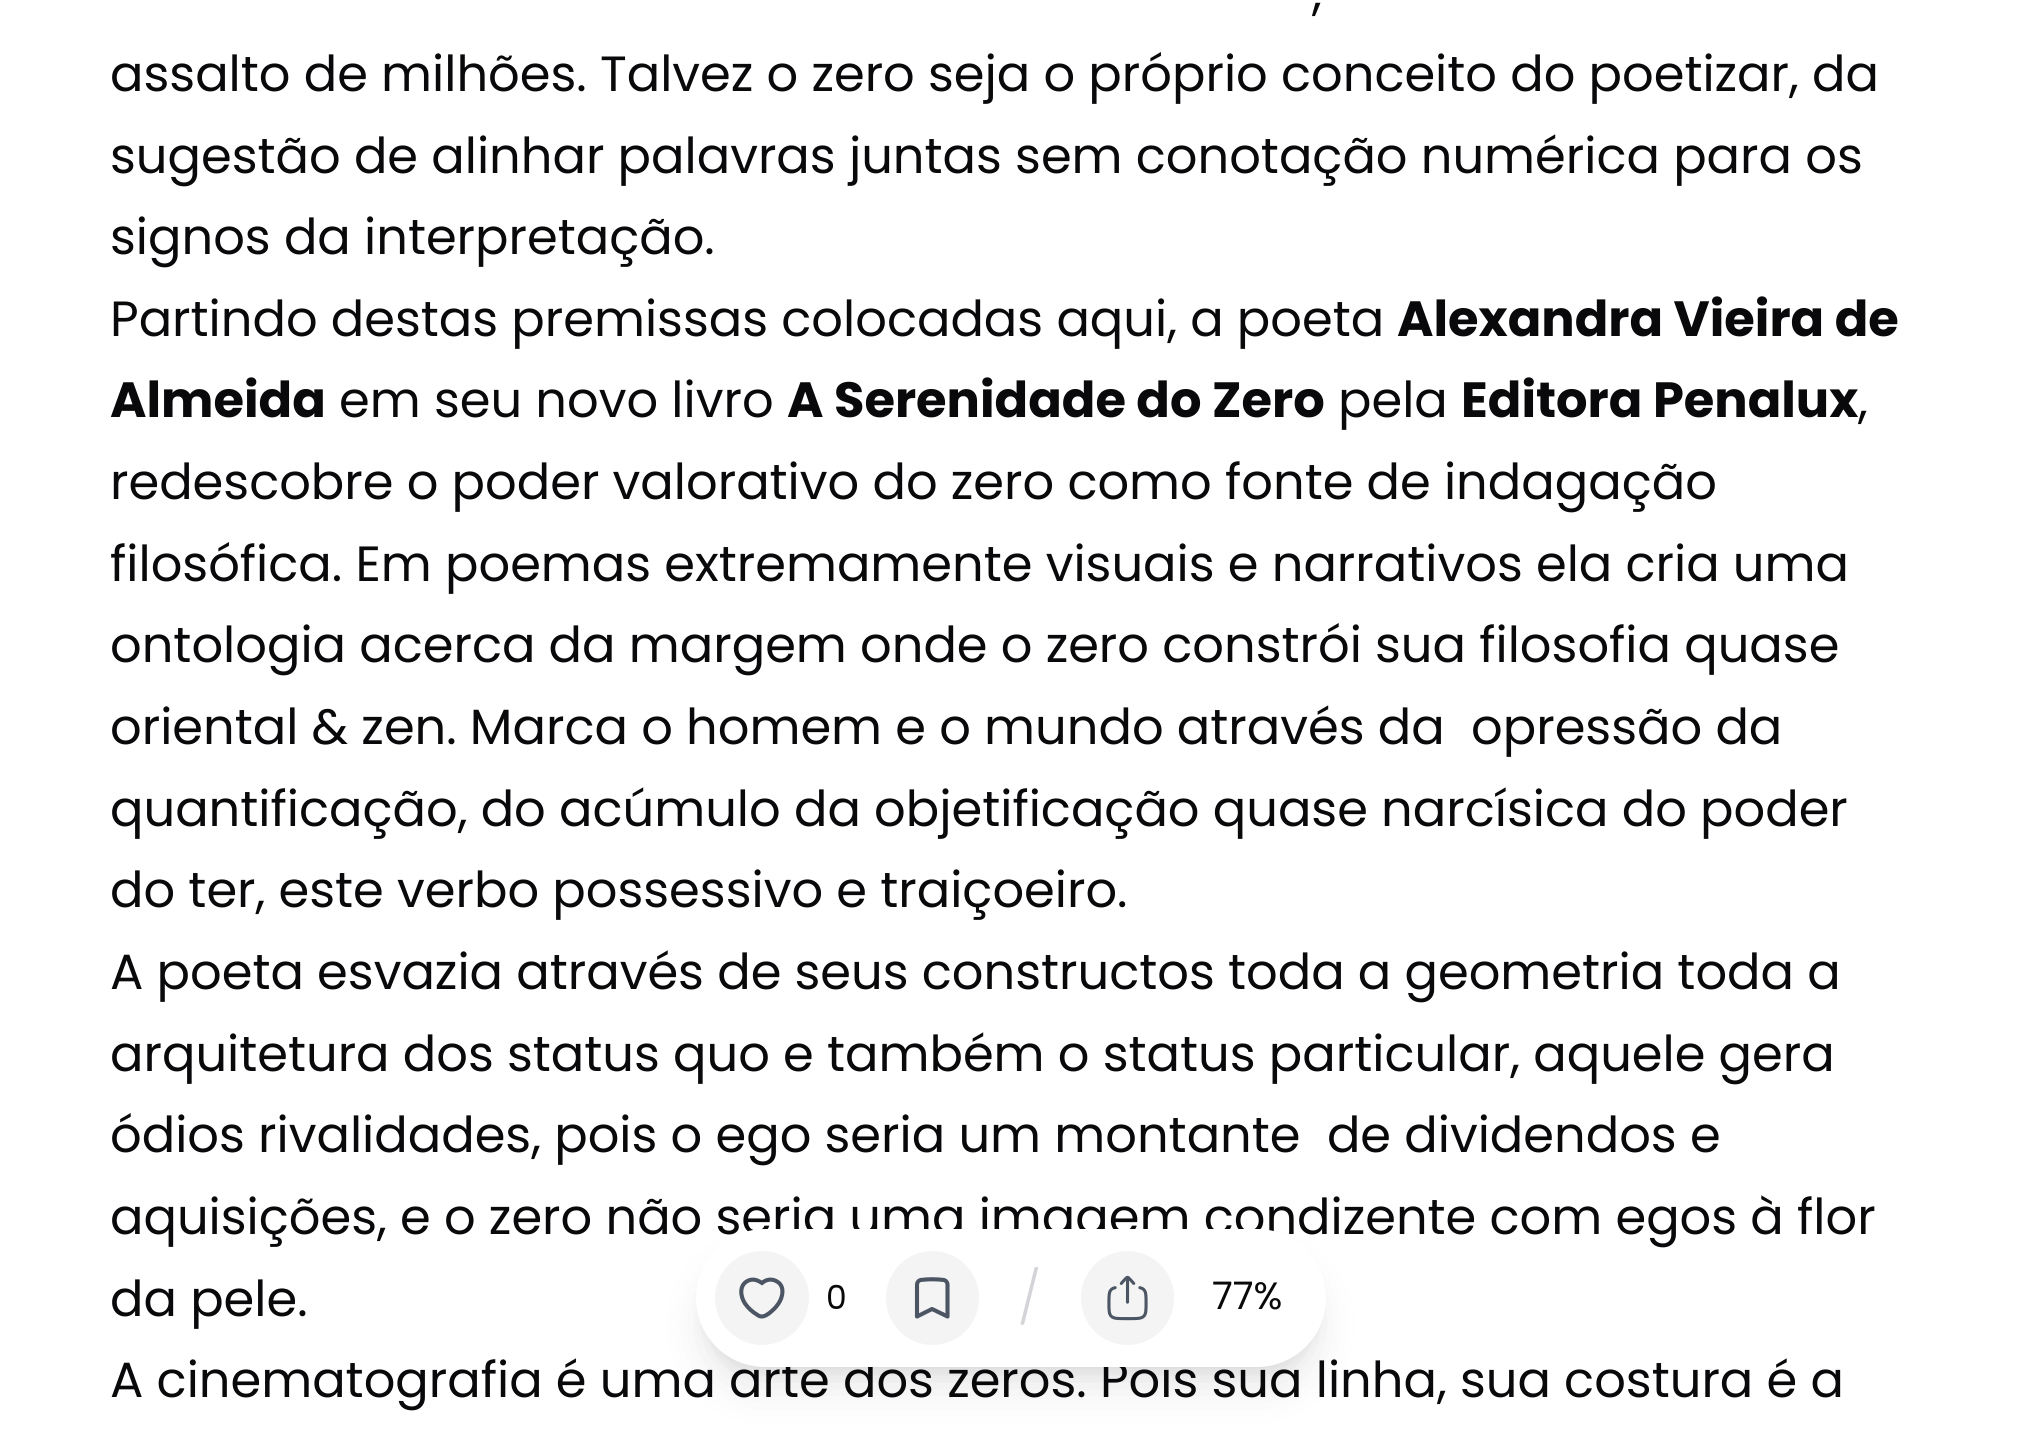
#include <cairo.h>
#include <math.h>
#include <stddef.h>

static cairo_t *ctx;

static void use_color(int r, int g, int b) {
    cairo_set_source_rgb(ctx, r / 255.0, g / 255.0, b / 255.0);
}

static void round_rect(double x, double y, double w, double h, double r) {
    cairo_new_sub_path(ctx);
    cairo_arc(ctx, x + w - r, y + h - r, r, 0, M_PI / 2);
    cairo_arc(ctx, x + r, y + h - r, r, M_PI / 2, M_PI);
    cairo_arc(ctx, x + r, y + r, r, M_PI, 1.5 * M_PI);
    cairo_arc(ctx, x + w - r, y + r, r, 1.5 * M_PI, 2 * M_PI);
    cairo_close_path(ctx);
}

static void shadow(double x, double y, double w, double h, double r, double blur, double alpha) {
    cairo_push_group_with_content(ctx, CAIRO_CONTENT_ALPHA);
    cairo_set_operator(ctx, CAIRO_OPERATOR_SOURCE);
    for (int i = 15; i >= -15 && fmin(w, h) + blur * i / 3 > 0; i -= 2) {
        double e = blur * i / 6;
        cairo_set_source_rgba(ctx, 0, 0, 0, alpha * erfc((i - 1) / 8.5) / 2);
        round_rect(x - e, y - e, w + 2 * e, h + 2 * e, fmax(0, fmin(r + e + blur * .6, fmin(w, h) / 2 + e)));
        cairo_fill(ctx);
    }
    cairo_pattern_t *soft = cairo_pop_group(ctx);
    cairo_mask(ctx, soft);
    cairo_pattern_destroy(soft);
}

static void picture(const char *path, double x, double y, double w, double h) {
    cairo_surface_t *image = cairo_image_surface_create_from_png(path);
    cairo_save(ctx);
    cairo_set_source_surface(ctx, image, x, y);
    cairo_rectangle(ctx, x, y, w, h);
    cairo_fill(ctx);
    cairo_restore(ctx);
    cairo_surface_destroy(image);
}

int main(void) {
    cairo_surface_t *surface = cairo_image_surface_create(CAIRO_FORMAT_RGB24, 2021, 1453);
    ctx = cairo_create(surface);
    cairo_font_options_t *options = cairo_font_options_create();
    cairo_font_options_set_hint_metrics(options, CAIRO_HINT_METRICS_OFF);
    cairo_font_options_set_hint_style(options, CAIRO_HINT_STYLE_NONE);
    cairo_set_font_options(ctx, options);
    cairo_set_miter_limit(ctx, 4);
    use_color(255, 255, 255);
    cairo_paint(ctx);
    cairo_select_font_face(ctx, "Poppins", CAIRO_FONT_SLANT_NORMAL, CAIRO_FONT_WEIGHT_NORMAL);
    cairo_set_font_size(ctx, 49.5);
    use_color(9, 9, 11);
    cairo_move_to(ctx, 1312, 9);
    cairo_show_text(ctx, ",");
    cairo_move_to(ctx, 110, 91);
    cairo_show_text(ctx, "assalto de milhões. Talvez o zero seja o próprio conceito do poetizar, da");
    cairo_move_to(ctx, 110, 173);
    cairo_show_text(ctx, "sugestão de alinhar palavras juntas sem conotação numérica para os");
    cairo_move_to(ctx, 110, 254);
    cairo_show_text(ctx, "signos da interpretação.");
    cairo_move_to(ctx, 110, 336);
    cairo_show_text(ctx, "Partindo destas premissas colocadas aqui, a poeta");
    cairo_select_font_face(ctx, "Poppins", CAIRO_FONT_SLANT_NORMAL, CAIRO_FONT_WEIGHT_BOLD);
    cairo_move_to(ctx, 1397, 336);
    cairo_show_text(ctx, "Alexandra Vieira de");
    cairo_move_to(ctx, 110, 417);
    cairo_show_text(ctx, "Almeida");
    cairo_select_font_face(ctx, "Poppins", CAIRO_FONT_SLANT_NORMAL, CAIRO_FONT_WEIGHT_NORMAL);
    cairo_move_to(ctx, 339, 417);
    cairo_show_text(ctx, "em seu novo livro");
    cairo_select_font_face(ctx, "Poppins", CAIRO_FONT_SLANT_NORMAL, CAIRO_FONT_WEIGHT_BOLD);
    cairo_move_to(ctx, 787, 417);
    cairo_show_text(ctx, "A Serenidade do Zero");
    cairo_select_font_face(ctx, "Poppins", CAIRO_FONT_SLANT_NORMAL, CAIRO_FONT_WEIGHT_NORMAL);
    cairo_move_to(ctx, 1338, 417);
    cairo_show_text(ctx, "pela");
    cairo_select_font_face(ctx, "Poppins", CAIRO_FONT_SLANT_NORMAL, CAIRO_FONT_WEIGHT_BOLD);
    cairo_move_to(ctx, 1461, 417);
    cairo_show_text(ctx, "Editora Penalux");
    cairo_select_font_face(ctx, "Poppins", CAIRO_FONT_SLANT_NORMAL, CAIRO_FONT_WEIGHT_NORMAL);
    cairo_move_to(ctx, 1858, 417);
    cairo_show_text(ctx, ",");
    cairo_move_to(ctx, 110, 499);
    cairo_show_text(ctx, "redescobre o poder valorativo do zero como fonte de indagação");
    cairo_move_to(ctx, 110, 581);
    cairo_show_text(ctx, "filosófica. Em poemas extremamente visuais e narrativos ela cria uma");
    cairo_move_to(ctx, 110, 662);
    cairo_show_text(ctx, "ontologia acerca da margem onde o zero constrói sua filosofia quase");
    cairo_move_to(ctx, 110, 744);
    cairo_show_text(ctx, "oriental & zen. Marca o homem e o mundo através da  opressão da");
    cairo_move_to(ctx, 110, 826);
    cairo_show_text(ctx, "quantificação, do acúmulo da objetificação quase narcísica do poder");
    cairo_move_to(ctx, 110, 907);
    cairo_show_text(ctx, "do ter, este verbo possessivo e traiçoeiro.");
    cairo_move_to(ctx, 110, 989);
    cairo_show_text(ctx, "A poeta esvazia através de seus constructos toda a geometria toda a");
    cairo_move_to(ctx, 110, 1071);
    cairo_show_text(ctx, "arquitetura dos status quo e também o status particular, aquele gera");
    cairo_move_to(ctx, 110, 1152);
    cairo_show_text(ctx, "ódios rivalidades, pois o ego seria um montante  de dividendos e");
    cairo_move_to(ctx, 110, 1234);
    cairo_show_text(ctx, "aquisições, e o zero não seria uma imagem condizente com egos à flor");
    cairo_move_to(ctx, 110, 1316);
    cairo_show_text(ctx, "da pele.");
    cairo_move_to(ctx, 110, 1397);
    cairo_show_text(ctx, "A cinematografia é uma arte dos zeros. Pois sua linha, sua costura é a");
    use_color(0, 0, 0);
    shadow(707, 1251, 608, 116, 58, 8, 0.1);
    shadow(704, 1265, 613, 121, 60.5, 20.5, 0.1);
    use_color(255, 255, 255);
    round_rect(696, 1229, 630, 138, 69);
    cairo_fill(ctx);
    use_color(244, 244, 245);
    cairo_arc(ctx, 762, 1298, 47, 0, 2 * M_PI);
    cairo_fill(ctx);
    cairo_new_path(ctx);
    cairo_move_to(ctx, 777, 1281.5);
    cairo_curve_to(ctx, 773, 1279, 768, 1279, 764, 1281.5);
    cairo_line_to(ctx, 762, 1283);
    cairo_line_to(ctx, 759.5, 1281.5);
    cairo_curve_to(ctx, 756, 1279.5, 752, 1279, 748.5, 1280.5);
    cairo_curve_to(ctx, 739, 1284.5, 740, 1296, 745, 1303.5);
    cairo_curve_to(ctx, 748, 1308, 752.5, 1312, 757.5, 1315);
    cairo_curve_to(ctx, 761.5, 1318, 765.5, 1316, 769.5, 1313);
    cairo_curve_to(ctx, 773.5, 1309.5, 775.5, 1308, 778.5, 1303.5);
    cairo_curve_to(ctx, 783, 1297, 785, 1286, 777, 1281.5);
    cairo_close_path(ctx);
    use_color(75, 85, 99);
    cairo_set_line_width(ctx, 4.1);
    cairo_set_line_cap(ctx, CAIRO_LINE_CAP_ROUND);
    cairo_stroke(ctx);
    cairo_set_font_size(ctx, 33);
    use_color(9, 9, 11);
    cairo_move_to(ctx, 826, 1309);
    cairo_show_text(ctx, "0");
    use_color(244, 244, 245);
    round_rect(886, 1251, 93, 94, 46.5);
    cairo_fill(ctx);
    cairo_new_path(ctx);
    cairo_move_to(ctx, 944, 1280);
    cairo_curve_to(ctx, 946, 1280.5, 947.5, 1282.5, 947.5, 1284.5);
    cairo_line_to(ctx, 947.5, 1316.5);
    cairo_line_to(ctx, 932, 1309);
    cairo_line_to(ctx, 917, 1316.5);
    cairo_line_to(ctx, 917, 1284.5);
    cairo_curve_to(ctx, 917, 1282.5, 918.5, 1280.5, 920.5, 1280);
    cairo_curve_to(ctx, 928.5, 1279, 936, 1279, 944, 1280);
    cairo_close_path(ctx);
    use_color(75, 85, 99);
    cairo_set_line_join(ctx, CAIRO_LINE_JOIN_ROUND);
    cairo_stroke(ctx);
    cairo_select_font_face(ctx, "Poppins Light", CAIRO_FONT_SLANT_NORMAL, CAIRO_FONT_WEIGHT_NORMAL);
    cairo_set_font_size(ctx, 52);
    use_color(212, 212, 216);
    cairo_move_to(ctx, 1018, 1316);
    cairo_show_text(ctx, "/");
    use_color(244, 244, 245);
    round_rect(1081, 1251, 93, 94, 46.5);
    cairo_fill(ctx);
    picture("img1.png", 1107, 1275, 41, 46);
    cairo_select_font_face(ctx, "Poppins", CAIRO_FONT_SLANT_NORMAL, CAIRO_FONT_WEIGHT_NORMAL);
    cairo_set_font_size(ctx, 38);
    use_color(9, 9, 11);
    cairo_move_to(ctx, 1212, 1309);
    cairo_show_text(ctx, "77%");
    cairo_surface_write_to_png(surface, "result.png");
    cairo_font_options_destroy(options);
    cairo_destroy(ctx);
    cairo_surface_destroy(surface);
    return 0;
}
